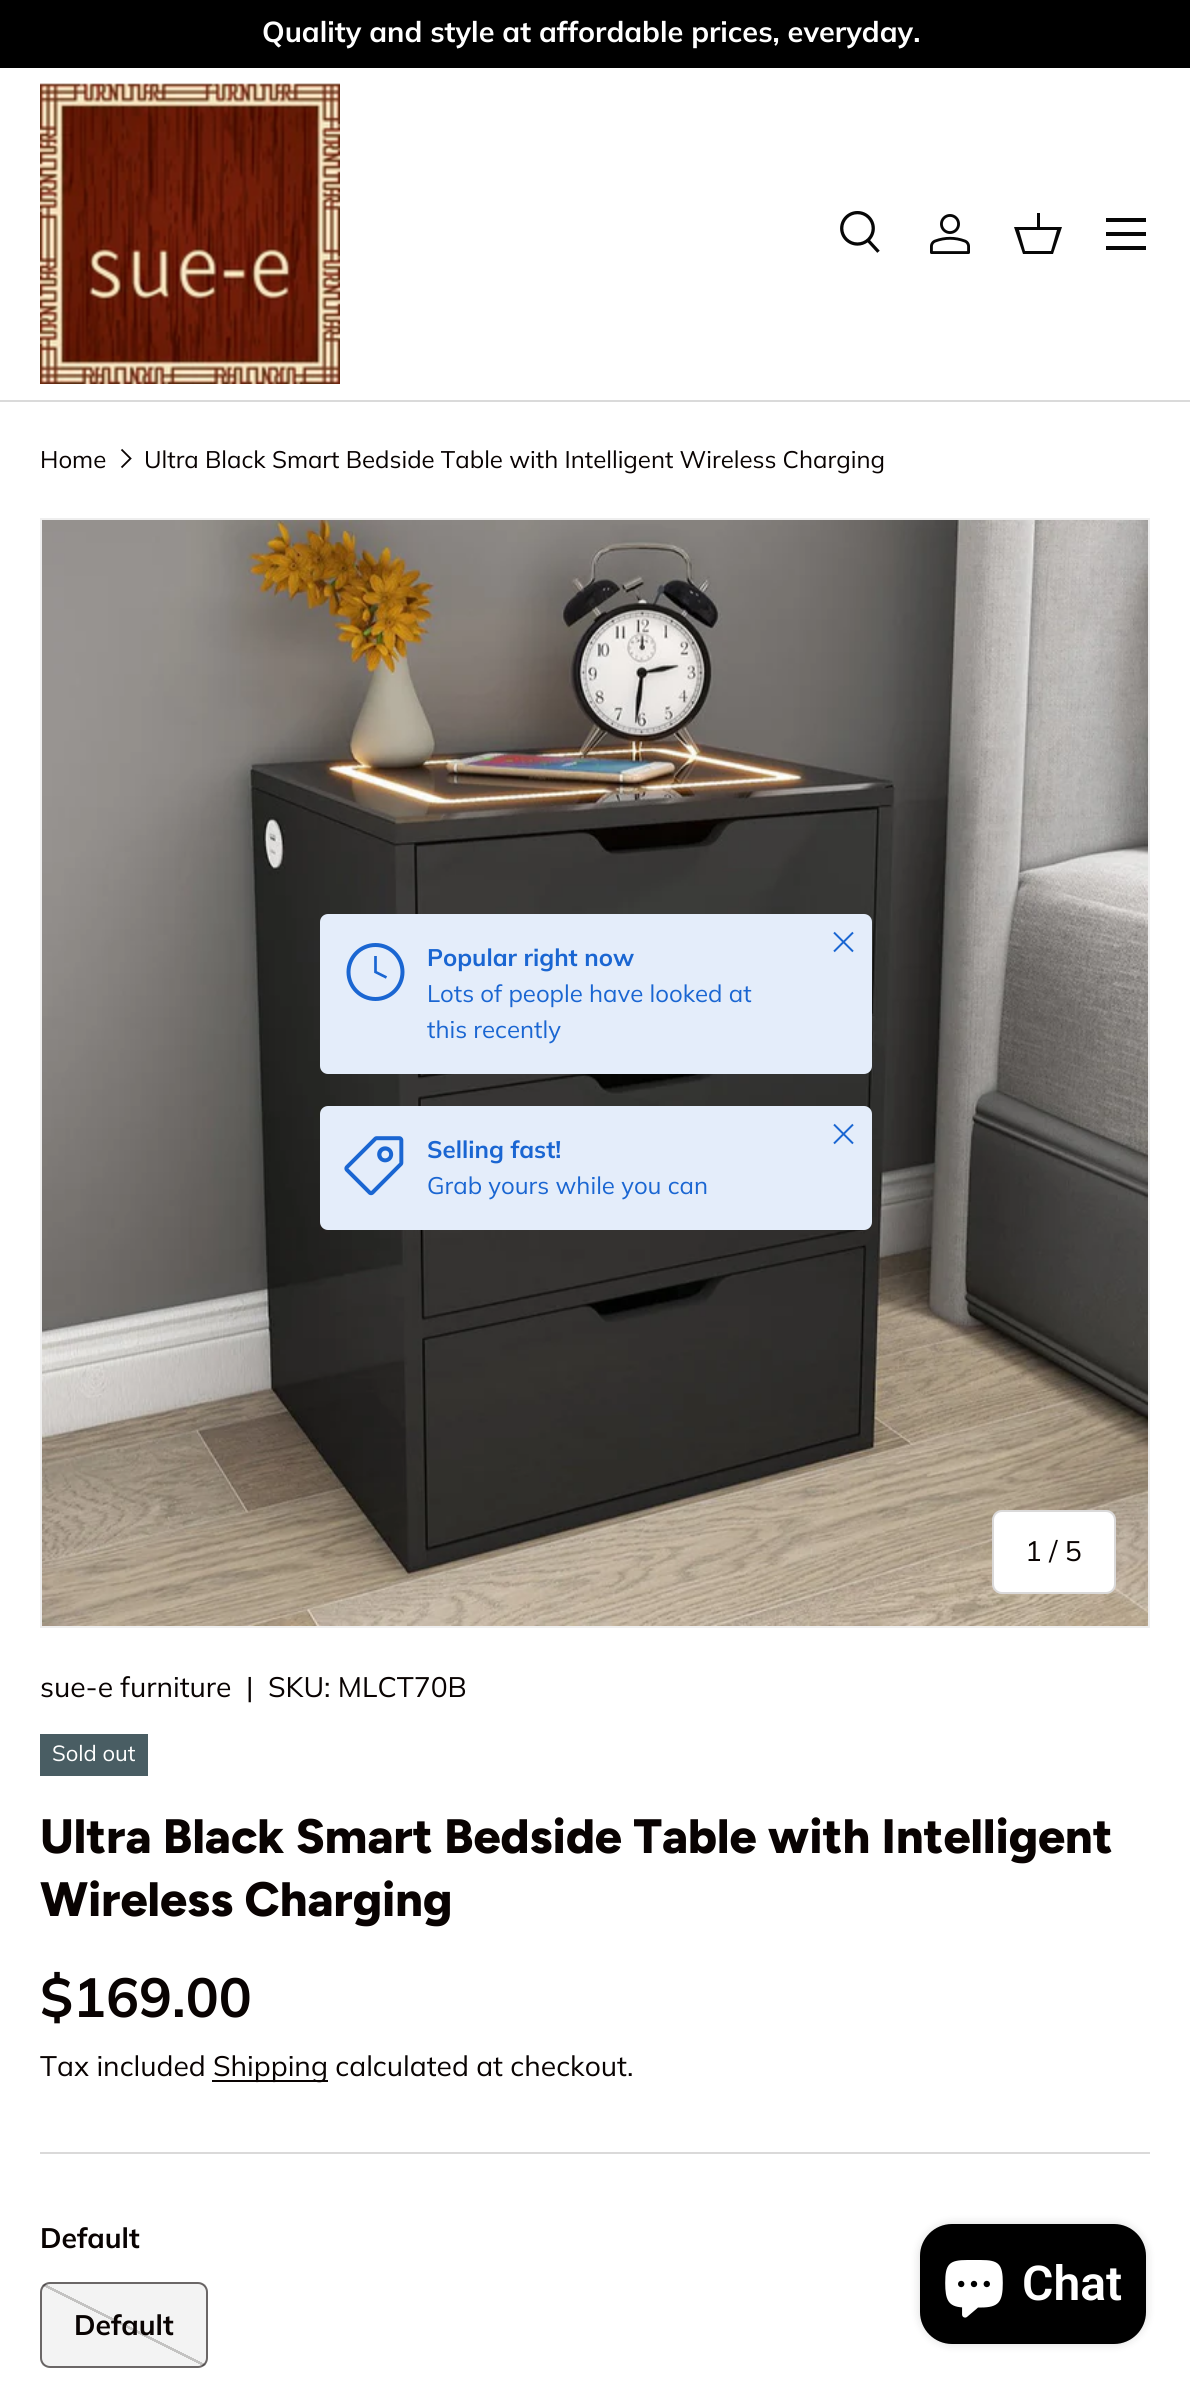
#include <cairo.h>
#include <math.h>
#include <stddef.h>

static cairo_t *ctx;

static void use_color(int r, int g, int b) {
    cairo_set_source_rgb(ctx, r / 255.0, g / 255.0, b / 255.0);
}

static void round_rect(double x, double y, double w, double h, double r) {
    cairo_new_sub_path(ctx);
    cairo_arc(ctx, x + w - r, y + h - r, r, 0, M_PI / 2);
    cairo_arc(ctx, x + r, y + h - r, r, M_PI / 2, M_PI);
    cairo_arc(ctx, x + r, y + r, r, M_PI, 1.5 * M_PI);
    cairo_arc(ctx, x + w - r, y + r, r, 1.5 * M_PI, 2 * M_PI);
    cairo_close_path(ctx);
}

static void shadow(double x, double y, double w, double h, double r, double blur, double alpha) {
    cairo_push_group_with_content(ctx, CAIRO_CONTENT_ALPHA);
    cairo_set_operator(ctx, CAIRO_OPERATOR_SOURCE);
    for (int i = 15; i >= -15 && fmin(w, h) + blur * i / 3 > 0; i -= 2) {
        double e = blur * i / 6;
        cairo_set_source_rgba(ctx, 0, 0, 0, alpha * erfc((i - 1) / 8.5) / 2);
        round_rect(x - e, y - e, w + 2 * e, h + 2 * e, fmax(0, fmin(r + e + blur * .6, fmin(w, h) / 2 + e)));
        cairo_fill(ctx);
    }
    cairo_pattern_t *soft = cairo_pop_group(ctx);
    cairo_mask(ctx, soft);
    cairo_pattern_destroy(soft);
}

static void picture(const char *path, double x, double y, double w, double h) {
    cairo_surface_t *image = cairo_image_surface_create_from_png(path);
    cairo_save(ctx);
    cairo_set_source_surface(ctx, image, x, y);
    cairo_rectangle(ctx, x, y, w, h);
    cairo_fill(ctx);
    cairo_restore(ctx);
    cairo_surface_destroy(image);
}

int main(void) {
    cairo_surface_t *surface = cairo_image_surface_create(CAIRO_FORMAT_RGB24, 1190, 2386);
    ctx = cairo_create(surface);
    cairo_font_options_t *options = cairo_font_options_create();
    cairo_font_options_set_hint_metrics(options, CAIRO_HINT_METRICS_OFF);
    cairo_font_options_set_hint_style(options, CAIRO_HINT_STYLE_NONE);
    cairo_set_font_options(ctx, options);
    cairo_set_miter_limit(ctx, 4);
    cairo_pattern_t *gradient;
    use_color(255, 255, 255);
    cairo_paint(ctx);
    use_color(0, 0, 0);
    cairo_rectangle(ctx, 0, 0, 1190, 68);
    cairo_fill(ctx);
    cairo_select_font_face(ctx, "Muli", CAIRO_FONT_SLANT_NORMAL, CAIRO_FONT_WEIGHT_BOLD);
    cairo_set_font_size(ctx, 28.8);
    use_color(255, 255, 255);
    cairo_move_to(ctx, 262, 42);
    cairo_show_text(ctx, "Quality and style at affordable prices, everyday.");
    use_color(218, 218, 218);
    cairo_rectangle(ctx, 0, 400, 1190, 2);
    cairo_fill(ctx);
    picture("img1.png", 40, 83, 300, 301);
    picture("img2.png", 840, 211, 40, 42);
    picture("img3.png", 930, 214, 40, 40);
    use_color(7, 7, 7);
    cairo_new_path(ctx);
    cairo_move_to(ctx, 1037, 227);
    cairo_line_to(ctx, 1037, 213);
    cairo_line_to(ctx, 1040, 213);
    cairo_line_to(ctx, 1040, 227);
    cairo_line_to(ctx, 1062, 227);
    cairo_line_to(ctx, 1053, 254);
    cairo_line_to(ctx, 1023, 254);
    cairo_line_to(ctx, 1014, 227);
    cairo_close_path(ctx);
    cairo_move_to(ctx, 1019, 230);
    cairo_line_to(ctx, 1025, 251);
    cairo_line_to(ctx, 1051, 251);
    cairo_line_to(ctx, 1057, 230);
    cairo_close_path(ctx);
    cairo_fill(ctx);
    cairo_rectangle(ctx, 1106, 218, 40, 4);
    cairo_fill(ctx);
    cairo_rectangle(ctx, 1106, 246, 40, 4);
    cairo_fill(ctx);
    cairo_rectangle(ctx, 1106, 232, 40, 4);
    cairo_fill(ctx);
    cairo_select_font_face(ctx, "Muli", CAIRO_FONT_SLANT_NORMAL, CAIRO_FONT_WEIGHT_NORMAL);
    cairo_set_font_size(ctx, 24);
    use_color(9, 3, 2);
    cairo_move_to(ctx, 40, 468);
    cairo_show_text(ctx, "Home");
    cairo_new_path(ctx);
    cairo_move_to(ctx, 121.5, 449.5);
    cairo_line_to(ctx, 130.5, 458.5);
    cairo_line_to(ctx, 121.5, 467.5);
    cairo_set_line_width(ctx, 1.8);
    cairo_stroke(ctx);
    cairo_move_to(ctx, 144, 468);
    cairo_show_text(ctx, "Ultra Black Smart Bedside Table with Intelligent Wireless Charging");
    cairo_rectangle(ctx, 41, 519, 1108, 1108);
    use_color(238, 238, 238);
    cairo_set_line_width(ctx, 2);
    cairo_stroke(ctx);
    picture("img4.png", 42, 520, 1106, 1106);
    use_color(228, 237, 250);
    round_rect(320, 914, 552, 160, 8);
    cairo_fill(ctx);
    cairo_arc(ctx, 375.5, 972, 27, 0, 2 * M_PI);
    use_color(26, 102, 210);
    cairo_set_line_width(ctx, 4);
    cairo_stroke(ctx);
    cairo_new_path(ctx);
    cairo_move_to(ctx, 375.5, 956);
    cairo_line_to(ctx, 375.5, 972);
    cairo_line_to(ctx, 386.5, 977.5);
    cairo_set_line_width(ctx, 2.7);
    cairo_stroke(ctx);
    cairo_select_font_face(ctx, "Muli", CAIRO_FONT_SLANT_NORMAL, CAIRO_FONT_WEIGHT_BOLD);
    cairo_move_to(ctx, 427, 966);
    cairo_show_text(ctx, "Popular right now");
    cairo_select_font_face(ctx, "Muli", CAIRO_FONT_SLANT_NORMAL, CAIRO_FONT_WEIGHT_NORMAL);
    cairo_move_to(ctx, 427, 1002);
    cairo_show_text(ctx, "Lots of people have looked at");
    cairo_move_to(ctx, 427, 1038);
    cairo_show_text(ctx, "this recently");
    cairo_new_path(ctx);
    cairo_move_to(ctx, 834, 951.5);
    cairo_line_to(ctx, 853, 932.5);
    cairo_move_to(ctx, 834, 932.5);
    cairo_line_to(ctx, 853, 951.5);
    cairo_set_line_width(ctx, 2);
    cairo_set_line_join(ctx, CAIRO_LINE_JOIN_ROUND);
    cairo_stroke(ctx);
    use_color(228, 237, 250);
    round_rect(320, 1106, 552, 124, 8);
    cairo_fill(ctx);
    picture("img5.png", 344, 1136, 60, 60);
    cairo_select_font_face(ctx, "Muli", CAIRO_FONT_SLANT_NORMAL, CAIRO_FONT_WEIGHT_BOLD);
    use_color(26, 102, 210);
    cairo_move_to(ctx, 427, 1158);
    cairo_show_text(ctx, "Selling fast!");
    cairo_select_font_face(ctx, "Muli", CAIRO_FONT_SLANT_NORMAL, CAIRO_FONT_WEIGHT_NORMAL);
    cairo_move_to(ctx, 427, 1194);
    cairo_show_text(ctx, "Grab yours while you can");
    cairo_new_path(ctx);
    cairo_move_to(ctx, 834, 1143.5);
    cairo_line_to(ctx, 853, 1124.5);
    cairo_move_to(ctx, 834, 1124.5);
    cairo_line_to(ctx, 853, 1143.5);
    cairo_stroke(ctx);
    use_color(255, 255, 255);
    round_rect(992, 1510, 124, 84, 10);
    cairo_fill(ctx);
    round_rect(993, 1511, 122, 82, 9);
    cairo_set_source_rgba(ctx, 0.035, 0.012, 0.008, 0.15);
    cairo_set_line_join(ctx, CAIRO_LINE_JOIN_MITER);
    cairo_stroke(ctx);
    cairo_set_font_size(ctx, 28.2);
    use_color(9, 3, 2);
    cairo_move_to(ctx, 1025, 1561);
    cairo_show_text(ctx, "1 / 5");
    cairo_move_to(ctx, 40, 1697);
    cairo_show_text(ctx, "sue-e furniture");
    cairo_move_to(ctx, 246, 1697);
    cairo_show_text(ctx, "|");
    cairo_move_to(ctx, 268, 1697);
    cairo_show_text(ctx, "SKU: MLCT70B");
    use_color(73, 93, 99);
    cairo_rectangle(ctx, 40, 1734, 108, 42);
    cairo_fill(ctx);
    cairo_set_font_size(ctx, 22);
    use_color(255, 255, 255);
    cairo_move_to(ctx, 52, 1761);
    cairo_show_text(ctx, "Sold out");
    cairo_select_font_face(ctx, "Figtree ExtraBold", CAIRO_FONT_SLANT_NORMAL, CAIRO_FONT_WEIGHT_NORMAL);
    cairo_set_font_size(ctx, 48.25);
    use_color(9, 3, 2);
    cairo_move_to(ctx, 40, 1853);
    cairo_show_text(ctx, "Ultra Black Smart Bedside Table with Intelligent");
    cairo_move_to(ctx, 40, 1916);
    cairo_show_text(ctx, "Wireless Charging");
    cairo_select_font_face(ctx, "Muli", CAIRO_FONT_SLANT_NORMAL, CAIRO_FONT_WEIGHT_BOLD);
    cairo_set_font_size(ctx, 55);
    cairo_move_to(ctx, 40, 2017);
    cairo_show_text(ctx, "$169.00");
    cairo_select_font_face(ctx, "Muli", CAIRO_FONT_SLANT_NORMAL, CAIRO_FONT_WEIGHT_NORMAL);
    cairo_set_font_size(ctx, 28.2);
    cairo_move_to(ctx, 40, 2076);
    cairo_show_text(ctx, "Tax included");
    cairo_rectangle(ctx, 212, 2080, 116, 2);
    cairo_fill(ctx);
    cairo_move_to(ctx, 213, 2076);
    cairo_show_text(ctx, "Shipping calculated at checkout.");
    use_color(218, 217, 217);
    cairo_rectangle(ctx, 40, 2152, 1110, 2);
    cairo_fill(ctx);
    cairo_select_font_face(ctx, "Muli", CAIRO_FONT_SLANT_NORMAL, CAIRO_FONT_WEIGHT_BOLD);
    use_color(9, 3, 2);
    cairo_move_to(ctx, 40, 2248);
    cairo_show_text(ctx, "Default");
    cairo_save(ctx);
    round_rect(40, 2282, 168, 86, 10);
    cairo_clip(ctx);
    gradient = cairo_pattern_create_linear(157, 2259, 91, 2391);
    cairo_pattern_add_color_stop_rgba(gradient, 0.49, 1, 1, 1, 1);
    cairo_pattern_add_color_stop_rgba(gradient, 0.49, 0.808, 0.804, 0.8, 1);
    cairo_pattern_add_color_stop_rgba(gradient, 0.51, 0.808, 0.804, 0.8, 1);
    cairo_pattern_add_color_stop_rgba(gradient, 0.51, 1, 1, 1, 1);
    cairo_set_source(ctx, gradient);
    cairo_pattern_destroy(gradient);
    cairo_rectangle(ctx, 42, 2284, 164, 82);
    cairo_fill(ctx);
    cairo_restore(ctx);
    round_rect(41, 2283, 166, 84, 9);
    cairo_set_source_rgba(ctx, 0.035, 0.012, 0.008, 0.6);
    cairo_stroke(ctx);
    cairo_set_source_rgba(ctx, 0.035, 0.012, 0.008, 0.05);
    cairo_rectangle(ctx, 42, 2284, 164, 82);
    cairo_fill(ctx);
    use_color(9, 3, 2);
    cairo_move_to(ctx, 74, 2335);
    cairo_show_text(ctx, "Default");
    use_color(0, 0, 0);
    shadow(920, 2224, 226, 120, 32, 5, 0.15);
    use_color(0, 0, 0);
    round_rect(920, 2224, 226, 120, 32);
    cairo_fill(ctx);
    picture("img6.png", 945, 2260, 58, 58);
    cairo_select_font_face(ctx, "Roboto SemiBold", CAIRO_FONT_SLANT_NORMAL, CAIRO_FONT_WEIGHT_NORMAL);
    cairo_set_font_size(ctx, 48);
    use_color(255, 255, 255);
    cairo_move_to(ctx, 1022, 2300);
    cairo_show_text(ctx, "Chat");
    cairo_surface_write_to_png(surface, "result.png");
    cairo_font_options_destroy(options);
    cairo_destroy(ctx);
    cairo_surface_destroy(surface);
    return 0;
}
